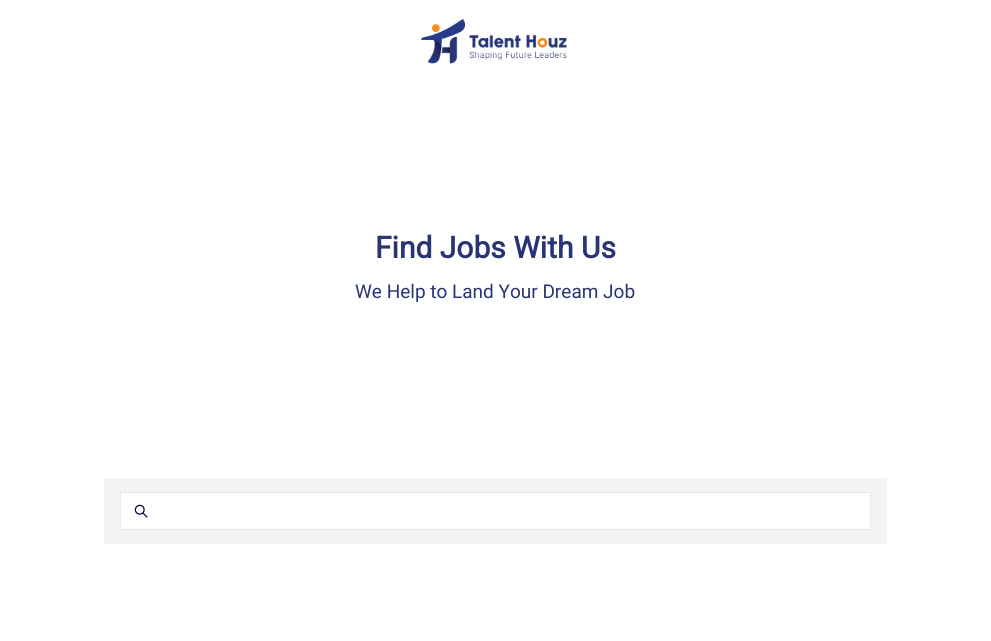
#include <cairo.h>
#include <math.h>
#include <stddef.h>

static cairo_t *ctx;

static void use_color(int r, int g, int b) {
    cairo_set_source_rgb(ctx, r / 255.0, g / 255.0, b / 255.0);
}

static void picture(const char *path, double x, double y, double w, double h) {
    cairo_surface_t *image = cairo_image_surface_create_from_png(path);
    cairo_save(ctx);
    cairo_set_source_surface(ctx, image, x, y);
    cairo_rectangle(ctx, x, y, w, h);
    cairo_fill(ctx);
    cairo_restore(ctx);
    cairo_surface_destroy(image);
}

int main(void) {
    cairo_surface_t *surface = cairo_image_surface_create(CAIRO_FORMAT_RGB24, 991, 641);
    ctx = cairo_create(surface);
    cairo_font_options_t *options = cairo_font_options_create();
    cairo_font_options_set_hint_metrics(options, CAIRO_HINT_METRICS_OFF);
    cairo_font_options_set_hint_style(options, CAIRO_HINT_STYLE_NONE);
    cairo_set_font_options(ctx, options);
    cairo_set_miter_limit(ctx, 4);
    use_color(255, 255, 255);
    cairo_paint(ctx);
    picture("img1.png", 421, 18, 146, 46);
    cairo_select_font_face(ctx, "Roboto", CAIRO_FONT_SLANT_NORMAL, CAIRO_FONT_WEIGHT_BOLD);
    cairo_set_font_size(ctx, 30);
    use_color(40, 53, 117);
    cairo_move_to(ctx, 375, 258);
    cairo_show_text(ctx, "Find Jobs With Us");
    cairo_select_font_face(ctx, "Roboto", CAIRO_FONT_SLANT_NORMAL, CAIRO_FONT_WEIGHT_NORMAL);
    cairo_set_font_size(ctx, 19);
    cairo_move_to(ctx, 355, 298);
    cairo_show_text(ctx, "We Help to Land Your Dream Job");
    use_color(244, 244, 245);
    cairo_rectangle(ctx, 104, 478, 783, 66);
    cairo_fill(ctx);
    use_color(255, 255, 255);
    cairo_rectangle(ctx, 120.5, 492.5, 750, 37);
    cairo_fill_preserve(ctx);
    use_color(226, 232, 240);
    cairo_set_line_width(ctx, 1);
    cairo_stroke(ctx);
    picture("img2.png", 134, 504, 14, 14);
    cairo_surface_write_to_png(surface, "result.png");
    cairo_font_options_destroy(options);
    cairo_destroy(ctx);
    cairo_surface_destroy(surface);
    return 0;
}
